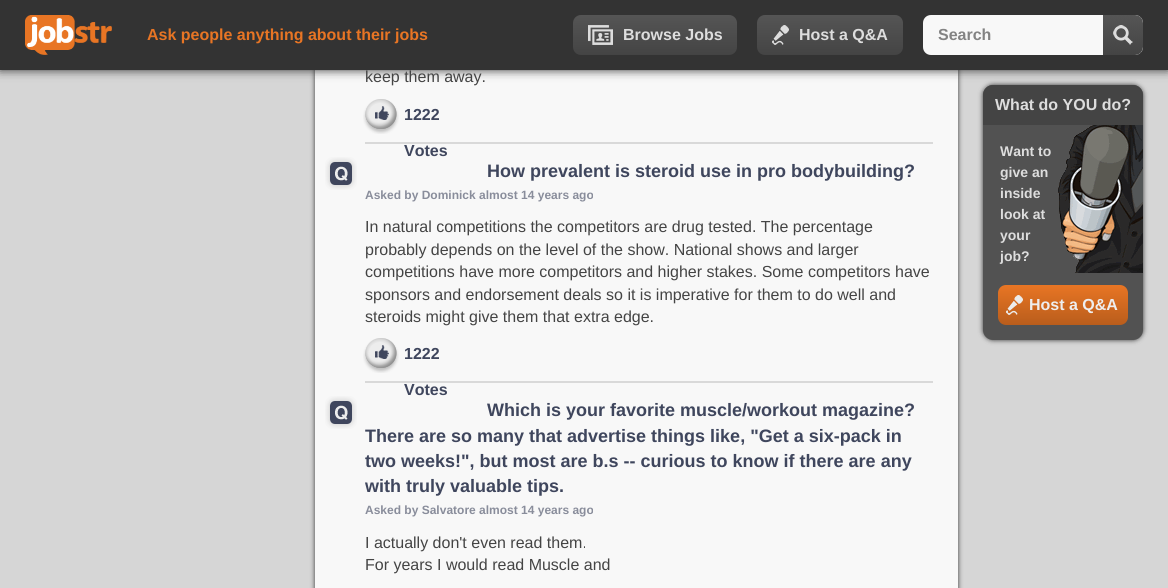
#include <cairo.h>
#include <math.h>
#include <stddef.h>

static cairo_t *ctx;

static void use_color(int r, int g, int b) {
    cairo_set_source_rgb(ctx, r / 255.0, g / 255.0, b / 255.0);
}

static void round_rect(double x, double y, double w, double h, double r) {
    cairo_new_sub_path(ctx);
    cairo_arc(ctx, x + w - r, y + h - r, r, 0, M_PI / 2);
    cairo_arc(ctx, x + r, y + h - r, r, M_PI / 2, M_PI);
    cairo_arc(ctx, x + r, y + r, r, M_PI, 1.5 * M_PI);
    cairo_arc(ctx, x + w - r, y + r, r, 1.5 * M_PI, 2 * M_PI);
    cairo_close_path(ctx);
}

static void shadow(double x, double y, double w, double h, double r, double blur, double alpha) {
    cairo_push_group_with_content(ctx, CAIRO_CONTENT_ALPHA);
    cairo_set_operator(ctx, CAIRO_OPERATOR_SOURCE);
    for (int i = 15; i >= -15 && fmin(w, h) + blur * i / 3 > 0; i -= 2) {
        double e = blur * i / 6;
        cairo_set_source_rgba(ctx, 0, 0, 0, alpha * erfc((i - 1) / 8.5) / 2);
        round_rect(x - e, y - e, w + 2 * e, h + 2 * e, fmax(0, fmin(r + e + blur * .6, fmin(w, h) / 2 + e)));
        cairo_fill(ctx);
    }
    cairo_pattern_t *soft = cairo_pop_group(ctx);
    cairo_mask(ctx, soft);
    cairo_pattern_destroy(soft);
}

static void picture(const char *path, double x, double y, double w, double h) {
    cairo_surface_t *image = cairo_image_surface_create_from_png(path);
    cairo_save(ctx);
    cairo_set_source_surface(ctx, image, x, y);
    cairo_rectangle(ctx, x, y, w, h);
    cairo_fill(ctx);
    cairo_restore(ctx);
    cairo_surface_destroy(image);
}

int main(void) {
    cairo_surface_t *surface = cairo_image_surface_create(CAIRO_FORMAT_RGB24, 1168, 588);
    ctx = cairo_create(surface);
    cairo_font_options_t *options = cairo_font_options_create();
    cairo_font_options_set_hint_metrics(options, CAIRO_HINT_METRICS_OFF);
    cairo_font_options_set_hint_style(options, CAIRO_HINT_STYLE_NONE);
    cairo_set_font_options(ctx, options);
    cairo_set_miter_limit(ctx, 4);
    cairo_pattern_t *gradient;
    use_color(214, 214, 214);
    cairo_paint(ctx);
    use_color(51, 51, 51);
    shadow(315, -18, 643, 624, 10, 2.5, 1);
    use_color(248, 248, 248);
    cairo_rectangle(ctx, 315, 70, 643, 518);
    cairo_fill(ctx);
    use_color(51, 51, 51);
    shadow(983, 85, 160, 255, 10, 2.5, 1);
    use_color(82, 82, 82);
    round_rect(983, 85, 160, 255, 10);
    cairo_fill(ctx);
    use_color(68, 68, 68);
    cairo_new_path(ctx);
    cairo_move_to(ctx, 993, 85);
    cairo_line_to(ctx, 1133, 85);
    cairo_curve_to(ctx, 1138.5, 85, 1143, 89.5, 1143, 95);
    cairo_line_to(ctx, 1143, 125);
    cairo_line_to(ctx, 983, 125);
    cairo_line_to(ctx, 983, 95);
    cairo_curve_to(ctx, 983, 89.5, 987.5, 85, 993, 85);
    cairo_close_path(ctx);
    cairo_fill(ctx);
    use_color(51, 51, 51);
    shadow(0, 0, 1168, 70, 0, 5, 1);
    use_color(51, 51, 51);
    cairo_rectangle(ctx, 0, 0, 1168, 70);
    cairo_fill(ctx);
    picture("img1.png", 25, 15, 87, 40);
    cairo_select_font_face(ctx, "Liberation Sans", CAIRO_FONT_SLANT_NORMAL, CAIRO_FONT_WEIGHT_BOLD);
    cairo_set_font_size(ctx, 16);
    use_color(232, 117, 36);
    cairo_move_to(ctx, 147, 40);
    cairo_show_text(ctx, "Ask people anything about their jobs");
    gradient = cairo_pattern_create_linear(655, 15, 655, 55);
    cairo_pattern_add_color_stop_rgba(gradient, 0, 0.333, 0.333, 0.333, 1);
    cairo_pattern_add_color_stop_rgba(gradient, 1, 0.267, 0.267, 0.267, 1);
    cairo_set_source(ctx, gradient);
    cairo_pattern_destroy(gradient);
    round_rect(573, 15, 164, 40, 8);
    cairo_fill(ctx);
    picture("img2.png", 588, 25, 25, 20);
    use_color(221, 221, 221);
    cairo_move_to(ctx, 623, 40);
    cairo_show_text(ctx, "Browse Jobs");
    gradient = cairo_pattern_create_linear(830, 15, 830, 55);
    cairo_pattern_add_color_stop_rgba(gradient, 0, 0.333, 0.333, 0.333, 1);
    cairo_pattern_add_color_stop_rgba(gradient, 1, 0.267, 0.267, 0.267, 1);
    cairo_set_source(ctx, gradient);
    cairo_pattern_destroy(gradient);
    round_rect(757, 15, 146, 40, 8);
    cairo_fill(ctx);
    picture("img3.png", 772, 25, 17, 20);
    use_color(221, 221, 221);
    cairo_move_to(ctx, 799, 40);
    cairo_show_text(ctx, "Host a Q&A");
    use_color(248, 248, 248);
    cairo_new_path(ctx);
    cairo_move_to(ctx, 931, 15);
    cairo_line_to(ctx, 1103, 15);
    cairo_line_to(ctx, 1103, 55);
    cairo_line_to(ctx, 931, 55);
    cairo_curve_to(ctx, 926.5, 55, 923, 51.5, 923, 47);
    cairo_line_to(ctx, 923, 23);
    cairo_curve_to(ctx, 923, 18.5, 926.5, 15, 931, 15);
    cairo_close_path(ctx);
    cairo_fill(ctx);
    use_color(131, 131, 131);
    cairo_move_to(ctx, 938, 40);
    cairo_show_text(ctx, "Search");
    use_color(239, 239, 239);
    cairo_new_path(ctx);
    cairo_move_to(ctx, 1103, 15);
    cairo_line_to(ctx, 1135, 15);
    cairo_curve_to(ctx, 1139.5, 15, 1143, 18.5, 1143, 23);
    cairo_line_to(ctx, 1143, 47);
    cairo_curve_to(ctx, 1143, 51.5, 1139.5, 55, 1135, 55);
    cairo_line_to(ctx, 1103, 55);
    cairo_close_path(ctx);
    cairo_fill(ctx);
    picture("img4.png", 1103, 15, 40, 40);
    cairo_select_font_face(ctx, "Liberation Sans", CAIRO_FONT_SLANT_NORMAL, CAIRO_FONT_WEIGHT_NORMAL);
    use_color(68, 68, 68);
    cairo_move_to(ctx, 365, 82);
    cairo_show_text(ctx, "keep them away.");
    use_color(217, 217, 217);
    cairo_rectangle(ctx, 365, 142, 568, 2);
    cairo_fill(ctx);
    picture("img5.png", 363, 99, 36, 35);
    cairo_select_font_face(ctx, "Liberation Sans", CAIRO_FONT_SLANT_NORMAL, CAIRO_FONT_WEIGHT_BOLD);
    use_color(63, 70, 93);
    cairo_move_to(ctx, 404, 120);
    cairo_show_text(ctx, "1222");
    cairo_move_to(ctx, 404, 156);
    cairo_show_text(ctx, "Votes");
    picture("img6.png", 325, 157, 32, 33);
    cairo_set_font_size(ctx, 18);
    cairo_move_to(ctx, 487, 177);
    cairo_show_text(ctx, "How prevalent is steroid use in pro bodybuilding?");
    cairo_set_font_size(ctx, 12);
    use_color(137, 141, 155);
    cairo_move_to(ctx, 365, 199);
    cairo_show_text(ctx, "Asked by Dominick almost 14 years ago");
    cairo_select_font_face(ctx, "Liberation Sans", CAIRO_FONT_SLANT_NORMAL, CAIRO_FONT_WEIGHT_NORMAL);
    cairo_set_font_size(ctx, 16);
    use_color(68, 68, 68);
    cairo_move_to(ctx, 365, 232);
    cairo_show_text(ctx, "In natural competitions the competitors are drug tested. The percentage");
    cairo_move_to(ctx, 365, 255);
    cairo_show_text(ctx, "probably depends on the level of the show. National shows and larger");
    cairo_move_to(ctx, 365, 277);
    cairo_show_text(ctx, "competitions have more competitors and higher stakes. Some competitors have");
    cairo_move_to(ctx, 365, 300);
    cairo_show_text(ctx, "sponsors and endorsement deals so it is imperative for them to do well and");
    cairo_move_to(ctx, 365, 322);
    cairo_show_text(ctx, "steroids might give them that extra edge.");
    use_color(217, 217, 217);
    cairo_rectangle(ctx, 365, 381, 568, 2);
    cairo_fill(ctx);
    picture("img5.png", 363, 338, 36, 35);
    cairo_select_font_face(ctx, "Liberation Sans", CAIRO_FONT_SLANT_NORMAL, CAIRO_FONT_WEIGHT_BOLD);
    use_color(63, 70, 93);
    cairo_move_to(ctx, 404, 359);
    cairo_show_text(ctx, "1222");
    cairo_move_to(ctx, 404, 395);
    cairo_show_text(ctx, "Votes");
    picture("img6.png", 325, 396, 32, 33);
    cairo_set_font_size(ctx, 18);
    cairo_move_to(ctx, 487, 416);
    cairo_show_text(ctx, "Which is your favorite muscle/workout magazine?");
    cairo_move_to(ctx, 365, 442);
    cairo_show_text(ctx, "There are so many that advertise things like, \"Get a six-pack in");
    cairo_move_to(ctx, 365, 467);
    cairo_show_text(ctx, "two weeks!\", but most are b.s -- curious to know if there are any");
    cairo_move_to(ctx, 365, 492);
    cairo_show_text(ctx, "with truly valuable tips.");
    cairo_set_font_size(ctx, 12);
    use_color(137, 141, 155);
    cairo_move_to(ctx, 365, 514);
    cairo_show_text(ctx, "Asked by Salvatore almost 14 years ago");
    cairo_select_font_face(ctx, "Liberation Sans", CAIRO_FONT_SLANT_NORMAL, CAIRO_FONT_WEIGHT_NORMAL);
    cairo_set_font_size(ctx, 16);
    use_color(68, 68, 68);
    cairo_move_to(ctx, 365, 548);
    cairo_show_text(ctx, "I actually don't even read them.");
    cairo_move_to(ctx, 365, 570);
    cairo_show_text(ctx, "For years I would read Muscle and");
    picture("img7.png", 1058, 125, 85, 148);
    cairo_select_font_face(ctx, "Liberation Sans", CAIRO_FONT_SLANT_NORMAL, CAIRO_FONT_WEIGHT_BOLD);
    use_color(221, 221, 221);
    cairo_move_to(ctx, 995, 110);
    cairo_show_text(ctx, "What do YOU do?");
    cairo_set_font_size(ctx, 14);
    cairo_move_to(ctx, 1000, 156);
    cairo_show_text(ctx, "Want to");
    cairo_move_to(ctx, 1000, 177);
    cairo_show_text(ctx, "give an");
    cairo_move_to(ctx, 1000, 198);
    cairo_show_text(ctx, "inside");
    cairo_move_to(ctx, 1000, 219);
    cairo_show_text(ctx, "look at");
    cairo_move_to(ctx, 1000, 240);
    cairo_show_text(ctx, "your");
    cairo_move_to(ctx, 1000, 261);
    cairo_show_text(ctx, "job?");
    gradient = cairo_pattern_create_linear(1063, 285, 1063, 325);
    cairo_pattern_add_color_stop_rgba(gradient, 0, 0.91, 0.459, 0.141, 1);
    cairo_pattern_add_color_stop_rgba(gradient, 1, 0.725, 0.365, 0.11, 1);
    cairo_set_source(ctx, gradient);
    cairo_pattern_destroy(gradient);
    round_rect(998, 285, 130, 40, 8);
    cairo_fill(ctx);
    picture("img8.png", 1006, 295, 17, 20);
    cairo_set_font_size(ctx, 16);
    use_color(238, 238, 238);
    cairo_move_to(ctx, 1029, 310);
    cairo_show_text(ctx, "Host a Q&A");
    cairo_surface_write_to_png(surface, "result.png");
    cairo_font_options_destroy(options);
    cairo_destroy(ctx);
    cairo_surface_destroy(surface);
    return 0;
}
